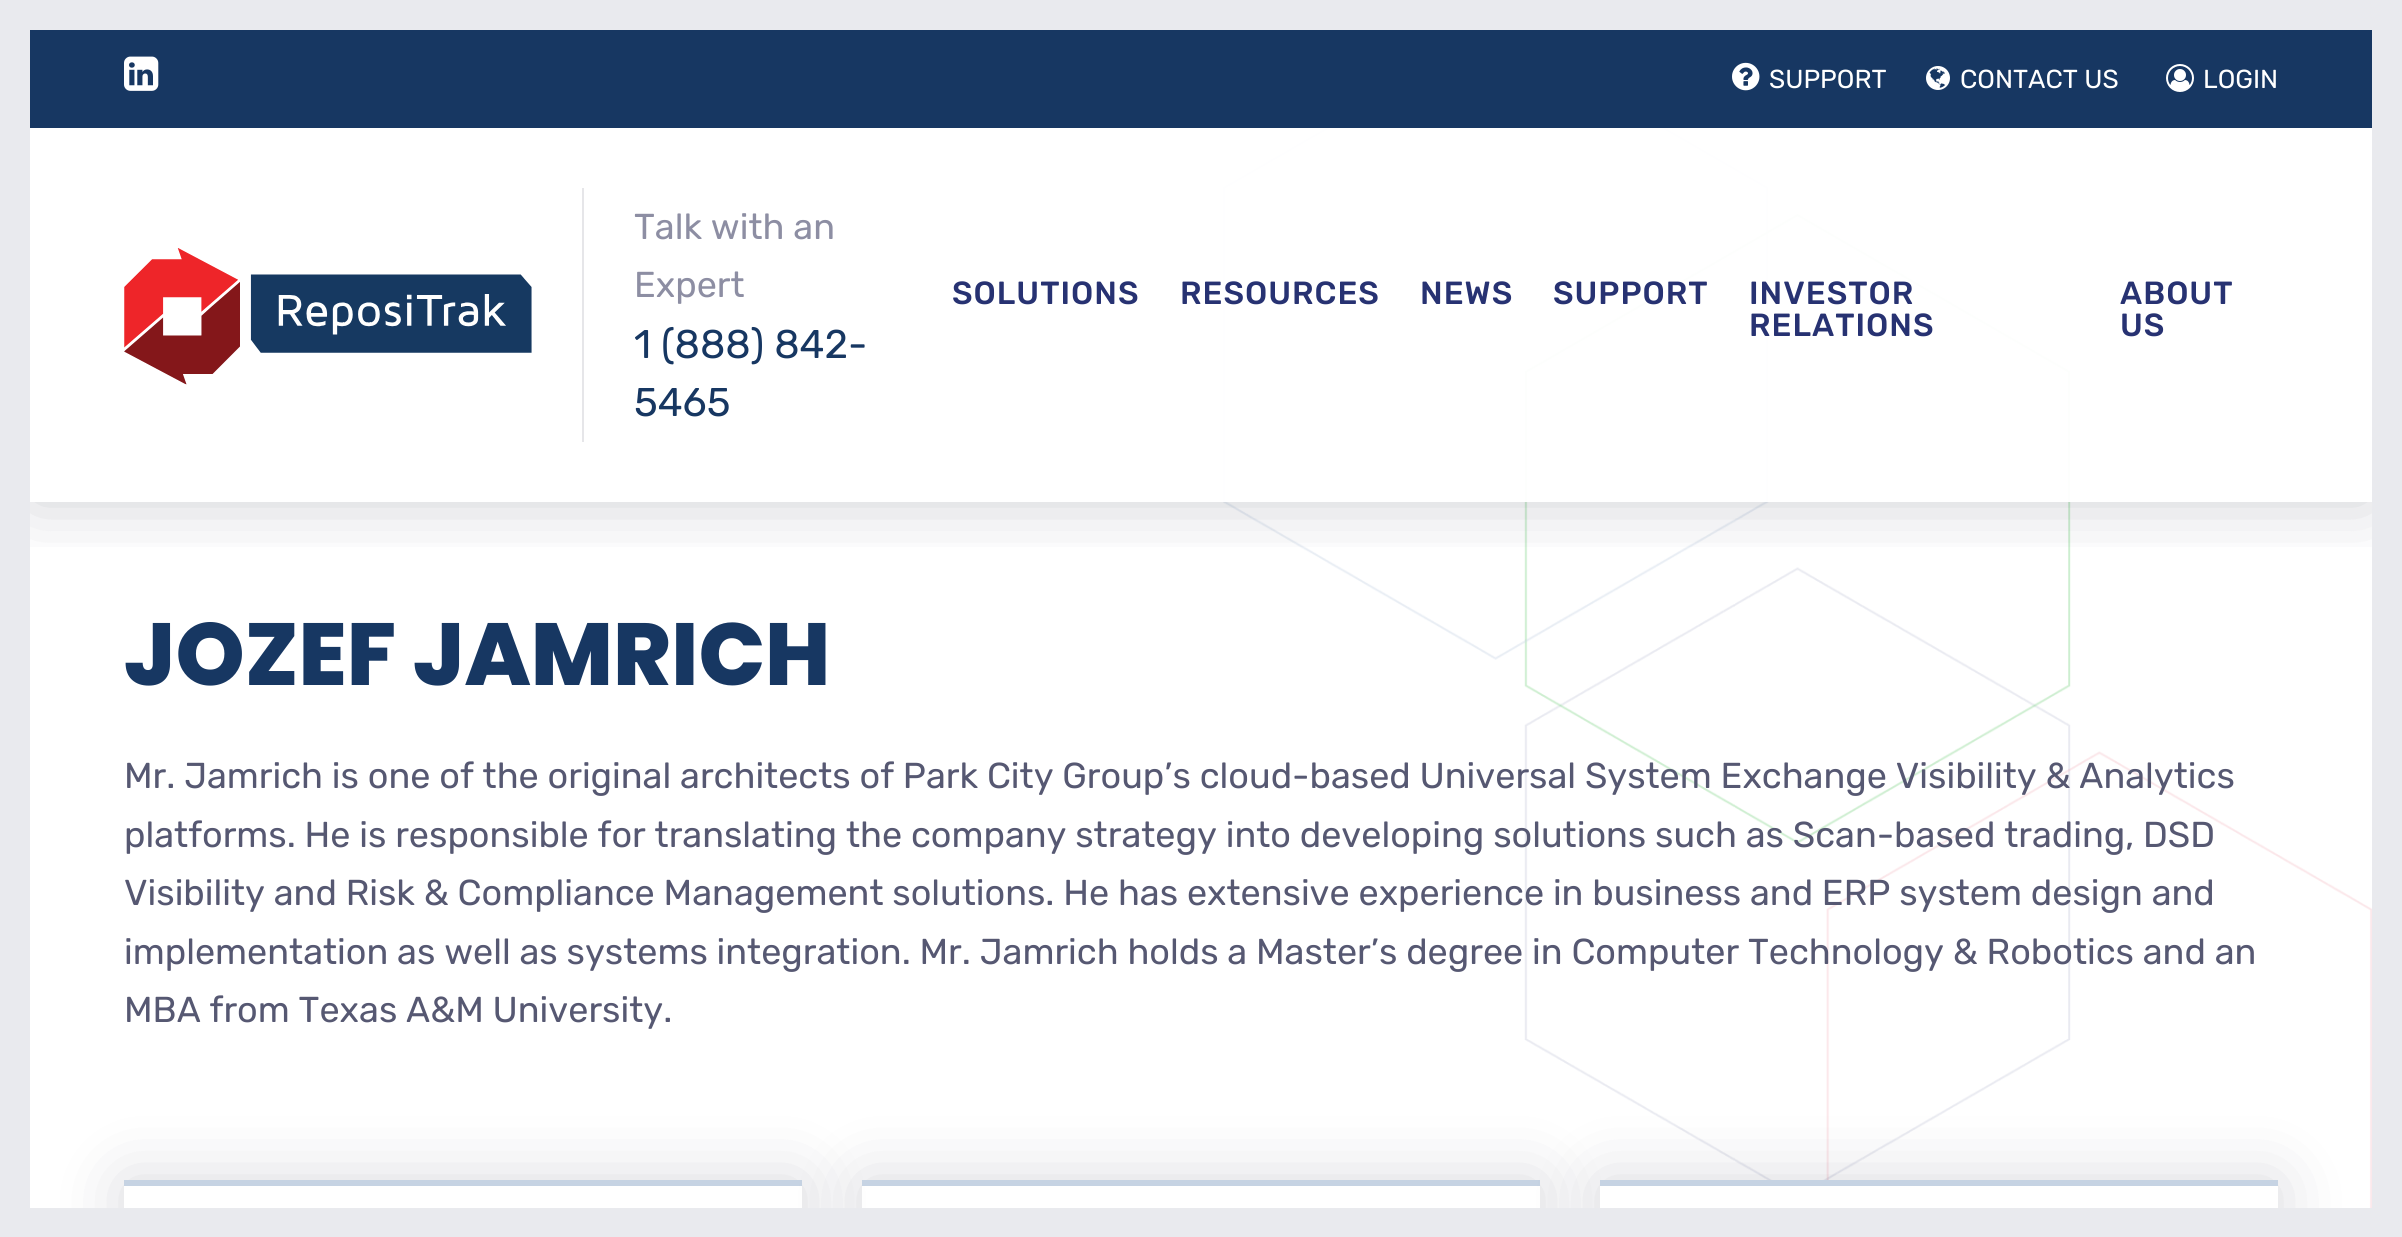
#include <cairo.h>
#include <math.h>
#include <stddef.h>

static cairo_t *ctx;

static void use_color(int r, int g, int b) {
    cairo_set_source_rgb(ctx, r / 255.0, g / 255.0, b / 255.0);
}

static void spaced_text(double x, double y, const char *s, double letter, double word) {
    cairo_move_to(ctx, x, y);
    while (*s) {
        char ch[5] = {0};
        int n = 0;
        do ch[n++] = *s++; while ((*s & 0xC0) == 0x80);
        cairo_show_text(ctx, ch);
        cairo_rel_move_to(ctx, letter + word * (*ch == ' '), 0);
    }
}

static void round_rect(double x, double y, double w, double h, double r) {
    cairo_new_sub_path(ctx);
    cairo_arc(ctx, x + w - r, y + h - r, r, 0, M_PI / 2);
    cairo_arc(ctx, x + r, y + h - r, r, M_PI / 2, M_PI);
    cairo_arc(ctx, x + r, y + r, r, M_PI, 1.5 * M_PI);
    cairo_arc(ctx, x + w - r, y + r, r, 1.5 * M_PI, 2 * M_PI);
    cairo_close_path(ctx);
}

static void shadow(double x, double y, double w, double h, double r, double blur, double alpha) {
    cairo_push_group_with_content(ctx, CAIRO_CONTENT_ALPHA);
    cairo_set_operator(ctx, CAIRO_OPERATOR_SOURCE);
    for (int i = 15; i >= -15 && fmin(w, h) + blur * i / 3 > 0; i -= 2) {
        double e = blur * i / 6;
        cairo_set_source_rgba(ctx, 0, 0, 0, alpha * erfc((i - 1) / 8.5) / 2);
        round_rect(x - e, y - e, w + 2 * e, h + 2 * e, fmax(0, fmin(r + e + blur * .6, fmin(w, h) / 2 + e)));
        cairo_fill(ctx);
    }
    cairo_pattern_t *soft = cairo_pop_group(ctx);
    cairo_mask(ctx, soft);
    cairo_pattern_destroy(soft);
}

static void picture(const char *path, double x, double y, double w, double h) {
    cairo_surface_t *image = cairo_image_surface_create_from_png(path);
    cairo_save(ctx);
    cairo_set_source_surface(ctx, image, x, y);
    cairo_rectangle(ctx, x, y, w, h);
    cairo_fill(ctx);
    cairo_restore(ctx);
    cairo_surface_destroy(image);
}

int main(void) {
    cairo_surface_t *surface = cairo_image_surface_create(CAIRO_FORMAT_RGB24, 2402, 1237);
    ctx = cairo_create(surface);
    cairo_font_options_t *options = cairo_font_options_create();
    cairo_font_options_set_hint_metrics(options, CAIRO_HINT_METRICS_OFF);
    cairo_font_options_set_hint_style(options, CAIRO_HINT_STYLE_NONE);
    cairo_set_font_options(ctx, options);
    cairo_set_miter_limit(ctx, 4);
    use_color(255, 255, 255);
    cairo_paint(ctx);
    picture("img1.png", 1223, 128, 1149, 1080);
    cairo_save(ctx);
    cairo_rectangle(ctx, 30, 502, 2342, 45);
    cairo_clip(ctx);
    use_color(2, 6, 32);
    shadow(30, 128, 2342, 374, 0, 35, 0.2);
    cairo_restore(ctx);
    cairo_save(ctx);
    cairo_set_fill_rule(ctx, CAIRO_FILL_RULE_EVEN_ODD);
    cairo_new_path(ctx);
    cairo_move_to(ctx, 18, 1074);
    cairo_line_to(ctx, 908, 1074);
    cairo_line_to(ctx, 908, 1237);
    cairo_line_to(ctx, 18, 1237);
    cairo_close_path(ctx);
    cairo_move_to(ctx, 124, 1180);
    cairo_line_to(ctx, 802, 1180);
    cairo_line_to(ctx, 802, 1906);
    cairo_line_to(ctx, 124, 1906);
    cairo_close_path(ctx);
    cairo_clip(ctx);
    use_color(2, 6, 32);
    shadow(124, 1180, 678, 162, 0, 35, 0.15);
    cairo_restore(ctx);
    use_color(233, 234, 238);
    cairo_rectangle(ctx, 0, 0, 30, 1237);
    cairo_fill(ctx);
    cairo_rectangle(ctx, 30, 0, 2342, 30);
    cairo_fill(ctx);
    use_color(198, 211, 227);
    cairo_rectangle(ctx, 124, 1180, 678, 6);
    cairo_fill(ctx);
    cairo_save(ctx);
    cairo_set_fill_rule(ctx, CAIRO_FILL_RULE_EVEN_ODD);
    cairo_new_path(ctx);
    cairo_move_to(ctx, 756, 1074);
    cairo_line_to(ctx, 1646, 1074);
    cairo_line_to(ctx, 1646, 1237);
    cairo_line_to(ctx, 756, 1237);
    cairo_close_path(ctx);
    cairo_move_to(ctx, 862, 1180);
    cairo_line_to(ctx, 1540, 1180);
    cairo_line_to(ctx, 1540, 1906);
    cairo_line_to(ctx, 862, 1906);
    cairo_close_path(ctx);
    cairo_clip(ctx);
    use_color(2, 6, 32);
    shadow(862, 1180, 678, 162, 0, 35, 0.15);
    cairo_restore(ctx);
    cairo_rectangle(ctx, 862, 1180, 678, 6);
    cairo_fill(ctx);
    use_color(2, 6, 32);
    shadow(1600, 1180, 678, 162, 0, 35, 0.15);
    use_color(233, 234, 238);
    cairo_rectangle(ctx, 2372, 0, 30, 1208);
    cairo_fill(ctx);
    cairo_rectangle(ctx, 30, 1208, 2372, 29);
    cairo_fill(ctx);
    use_color(23, 55, 98);
    cairo_rectangle(ctx, 30, 30, 2342, 98);
    cairo_fill(ctx);
    picture("img2.png", 124, 56, 35, 35);
    picture("img3.png", 1732, 62, 28, 29);
    cairo_select_font_face(ctx, "Rubik", CAIRO_FONT_SLANT_NORMAL, CAIRO_FONT_WEIGHT_NORMAL);
    cairo_set_font_size(ctx, 26);
    use_color(255, 255, 255);
    cairo_move_to(ctx, 1769, 88);
    cairo_show_text(ctx, "SUPPORT");
    picture("img4.png", 1926, 66, 24, 24);
    cairo_move_to(ctx, 1960, 88);
    cairo_show_text(ctx, "CONTACT US");
    picture("img5.png", 2166, 64, 28, 28);
    cairo_move_to(ctx, 2203, 88);
    cairo_show_text(ctx, "LOGIN");
    cairo_set_source_rgba(ctx, 1, 1, 1, 0.95);
    cairo_rectangle(ctx, 1223, 128, 848, 374);
    cairo_fill(ctx);
    picture("img6.png", 124, 248, 408, 137);
    use_color(230, 230, 233);
    cairo_rectangle(ctx, 582, 188, 2, 254);
    cairo_fill(ctx);
    cairo_set_font_size(ctx, 36);
    use_color(141, 142, 163);
    cairo_move_to(ctx, 634, 239);
    cairo_show_text(ctx, "Talk with an");
    cairo_move_to(ctx, 634, 297);
    cairo_show_text(ctx, "Expert");
    cairo_set_font_size(ctx, 40);
    use_color(23, 55, 98);
    cairo_move_to(ctx, 634, 358);
    cairo_show_text(ctx, "1 (888) 842-");
    cairo_move_to(ctx, 634, 416);
    cairo_show_text(ctx, "5465");
    cairo_select_font_face(ctx, "Rubik Medium", CAIRO_FONT_SLANT_NORMAL, CAIRO_FONT_WEIGHT_NORMAL);
    cairo_set_font_size(ctx, 32);
    use_color(39, 50, 114);
    spaced_text(952, 304, "SOLUTIONS", 1, 0);
    spaced_text(1180, 304, "RESOURCES", 1, 0);
    spaced_text(1420, 304, "NEWS", 1, 0);
    spaced_text(1553, 304, "SUPPORT", 1, 0);
    spaced_text(1749, 304, "INVESTOR", 1, 0);
    spaced_text(1749, 336, "RELATIONS", 1, 0);
    spaced_text(2120, 304, "ABOUT", 1, 0);
    spaced_text(2120, 336, "US", 1, 0);
    cairo_select_font_face(ctx, "Poppins ExtraBold", CAIRO_FONT_SLANT_NORMAL, CAIRO_FONT_WEIGHT_NORMAL);
    cairo_set_font_size(ctx, 88);
    use_color(23, 55, 98);
    cairo_move_to(ctx, 124, 685);
    cairo_show_text(ctx, "JOZEF JAMRICH");
    cairo_select_font_face(ctx, "Rubik", CAIRO_FONT_SLANT_NORMAL, CAIRO_FONT_WEIGHT_NORMAL);
    cairo_set_font_size(ctx, 36);
    use_color(86, 88, 114);
    cairo_move_to(ctx, 124, 788);
    cairo_show_text(ctx, "Mr. Jamrich is one of the original architects of Park City Group’s cloud-based Universal System Exchange Visibility & Analytics");
    cairo_move_to(ctx, 124, 847);
    cairo_show_text(ctx, "platforms. He is responsible for translating the company strategy into developing solutions such as Scan-based trading, DSD");
    cairo_move_to(ctx, 124, 905);
    cairo_show_text(ctx, "Visibility and Risk & Compliance Management solutions. He has extensive experience in business and ERP system design and");
    cairo_move_to(ctx, 124, 964);
    cairo_show_text(ctx, "implementation as well as systems integration. Mr. Jamrich holds a Master’s degree in Computer Technology & Robotics and an");
    cairo_move_to(ctx, 124, 1022);
    cairo_show_text(ctx, "MBA from Texas A&M University.");
    use_color(255, 255, 255);
    cairo_rectangle(ctx, 1600, 1186, 678, 22);
    cairo_fill(ctx);
    use_color(198, 211, 227);
    cairo_rectangle(ctx, 1600, 1180, 678, 6);
    cairo_fill(ctx);
    cairo_surface_write_to_png(surface, "result.png");
    cairo_font_options_destroy(options);
    cairo_destroy(ctx);
    cairo_surface_destroy(surface);
    return 0;
}
